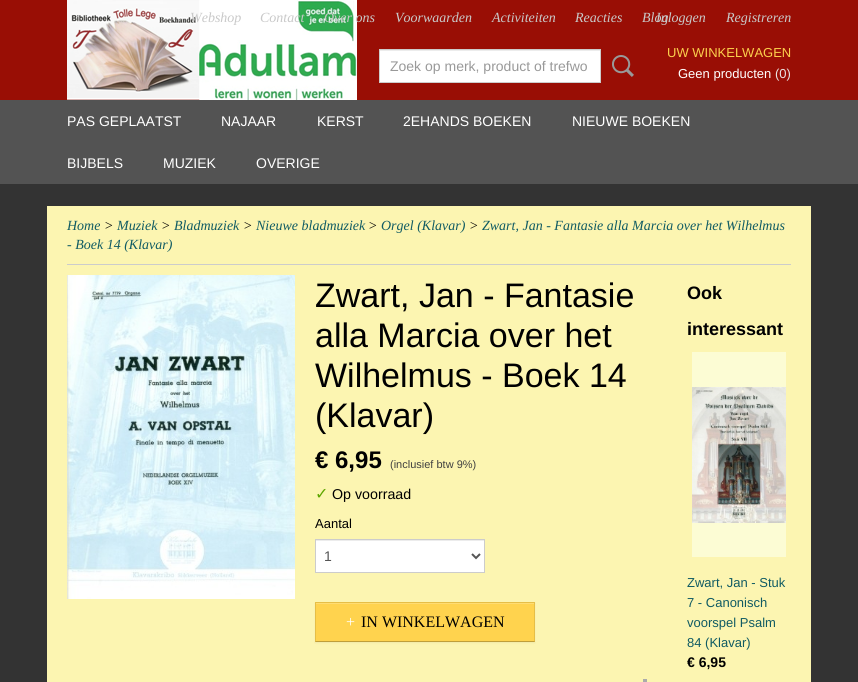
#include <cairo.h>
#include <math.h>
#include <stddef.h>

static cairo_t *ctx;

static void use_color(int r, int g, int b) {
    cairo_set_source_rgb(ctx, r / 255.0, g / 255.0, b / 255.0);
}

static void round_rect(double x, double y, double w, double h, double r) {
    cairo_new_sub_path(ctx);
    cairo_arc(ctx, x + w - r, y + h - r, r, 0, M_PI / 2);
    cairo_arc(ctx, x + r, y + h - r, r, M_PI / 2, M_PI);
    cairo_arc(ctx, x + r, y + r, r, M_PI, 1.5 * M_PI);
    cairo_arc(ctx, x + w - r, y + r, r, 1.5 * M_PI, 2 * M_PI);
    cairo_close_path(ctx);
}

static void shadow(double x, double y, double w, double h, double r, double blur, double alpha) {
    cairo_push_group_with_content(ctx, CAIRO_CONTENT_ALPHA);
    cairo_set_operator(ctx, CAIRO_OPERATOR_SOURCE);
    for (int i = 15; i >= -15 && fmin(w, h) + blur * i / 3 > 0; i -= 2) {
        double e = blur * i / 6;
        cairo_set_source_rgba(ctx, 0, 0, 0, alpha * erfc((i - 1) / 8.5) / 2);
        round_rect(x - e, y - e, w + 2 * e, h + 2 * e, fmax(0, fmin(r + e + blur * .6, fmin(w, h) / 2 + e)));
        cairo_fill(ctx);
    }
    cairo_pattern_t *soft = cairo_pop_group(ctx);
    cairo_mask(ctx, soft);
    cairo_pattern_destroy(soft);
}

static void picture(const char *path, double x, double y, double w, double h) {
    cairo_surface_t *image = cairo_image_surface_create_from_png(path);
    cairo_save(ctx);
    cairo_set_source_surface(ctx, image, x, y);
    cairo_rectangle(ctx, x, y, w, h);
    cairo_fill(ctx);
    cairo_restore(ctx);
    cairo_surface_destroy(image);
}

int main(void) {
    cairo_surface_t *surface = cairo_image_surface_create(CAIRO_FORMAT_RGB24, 858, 682);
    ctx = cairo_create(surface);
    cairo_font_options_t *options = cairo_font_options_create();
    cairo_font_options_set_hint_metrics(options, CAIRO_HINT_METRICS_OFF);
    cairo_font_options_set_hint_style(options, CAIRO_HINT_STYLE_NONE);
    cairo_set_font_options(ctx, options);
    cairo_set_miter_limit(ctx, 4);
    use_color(51, 51, 51);
    cairo_paint(ctx);
    use_color(153, 14, 5);
    cairo_rectangle(ctx, 0, 0, 858, 100);
    cairo_fill(ctx);
    picture("img1.png", 67, 0, 290, 100);
    cairo_select_font_face(ctx, "Liberation Serif", CAIRO_FONT_SLANT_ITALIC, CAIRO_FONT_WEIGHT_NORMAL);
    cairo_set_font_size(ctx, 14);
    use_color(201, 201, 201);
    cairo_move_to(ctx, 190, 22);
    cairo_show_text(ctx, "Webshop");
    cairo_move_to(ctx, 260, 22);
    cairo_show_text(ctx, "Contact");
    cairo_move_to(ctx, 324, 22);
    cairo_show_text(ctx, "Over ons");
    cairo_move_to(ctx, 395, 22);
    cairo_show_text(ctx, "Voorwaarden");
    cairo_move_to(ctx, 492, 22);
    cairo_show_text(ctx, "Activiteiten");
    cairo_move_to(ctx, 575, 22);
    cairo_show_text(ctx, "Reacties");
    cairo_move_to(ctx, 642, 22);
    cairo_show_text(ctx, "Blog");
    cairo_move_to(ctx, 656, 22);
    cairo_show_text(ctx, "Inloggen");
    cairo_move_to(ctx, 726, 22);
    cairo_show_text(ctx, "Registreren");
    cairo_select_font_face(ctx, "Liberation Sans", CAIRO_FONT_SLANT_NORMAL, CAIRO_FONT_WEIGHT_NORMAL);
    cairo_set_font_size(ctx, 13);
    use_color(252, 208, 77);
    cairo_move_to(ctx, 667, 57);
    cairo_show_text(ctx, "UW WINKELWAGEN");
    use_color(255, 255, 255);
    cairo_move_to(ctx, 678, 78);
    cairo_show_text(ctx, "Geen producten");
    use_color(234, 227, 226);
    cairo_move_to(ctx, 775, 78);
    cairo_show_text(ctx, "(0)");
    use_color(255, 255, 255);
    cairo_rectangle(ctx, 380, 51, 220, 31);
    cairo_fill(ctx);
    use_color(236, 236, 236);
    cairo_rectangle(ctx, 380, 50, 220, 1);
    cairo_fill(ctx);
    cairo_rectangle(ctx, 379.5, 49.5, 221, 33);
    use_color(204, 204, 204);
    cairo_set_line_width(ctx, 1);
    cairo_stroke(ctx);
    cairo_set_font_size(ctx, 14);
    use_color(153, 153, 153);
    cairo_move_to(ctx, 390, 71);
    cairo_show_text(ctx, "Zoek op merk, product of trefwo");
    picture("img2.png", 612, 55, 22, 22);
    use_color(83, 83, 83);
    cairo_rectangle(ctx, 0, 100, 858, 84);
    cairo_fill(ctx);
    use_color(255, 255, 255);
    cairo_move_to(ctx, 67, 126);
    cairo_show_text(ctx, "PAS GEPLAATST");
    cairo_move_to(ctx, 221, 126);
    cairo_show_text(ctx, "NAJAAR");
    cairo_move_to(ctx, 317, 126);
    cairo_show_text(ctx, "KERST");
    cairo_move_to(ctx, 403, 126);
    cairo_show_text(ctx, "2EHANDS BOEKEN");
    cairo_move_to(ctx, 572, 126);
    cairo_show_text(ctx, "NIEUWE BOEKEN");
    cairo_move_to(ctx, 67, 168);
    cairo_show_text(ctx, "BIJBELS");
    cairo_move_to(ctx, 163, 168);
    cairo_show_text(ctx, "MUZIEK");
    cairo_move_to(ctx, 256, 168);
    cairo_show_text(ctx, "OVERIGE");
    use_color(252, 245, 177);
    cairo_rectangle(ctx, 47, 206, 764, 476);
    cairo_fill(ctx);
    use_color(204, 204, 204);
    cairo_rectangle(ctx, 67, 264, 724, 1);
    cairo_fill(ctx);
    cairo_select_font_face(ctx, "Liberation Serif", CAIRO_FONT_SLANT_ITALIC, CAIRO_FONT_WEIGHT_NORMAL);
    use_color(16, 91, 99);
    cairo_move_to(ctx, 67, 230);
    cairo_show_text(ctx, "Home");
    use_color(0, 0, 0);
    cairo_move_to(ctx, 104, 230);
    cairo_show_text(ctx, ">");
    use_color(16, 91, 99);
    cairo_move_to(ctx, 117, 230);
    cairo_show_text(ctx, "Muziek");
    use_color(0, 0, 0);
    cairo_move_to(ctx, 161, 230);
    cairo_show_text(ctx, ">");
    use_color(16, 91, 99);
    cairo_move_to(ctx, 174, 230);
    cairo_show_text(ctx, "Bladmuziek");
    use_color(0, 0, 0);
    cairo_move_to(ctx, 243, 230);
    cairo_show_text(ctx, ">");
    use_color(16, 91, 99);
    cairo_move_to(ctx, 256, 230);
    cairo_show_text(ctx, "Nieuwe bladmuziek");
    use_color(0, 0, 0);
    cairo_move_to(ctx, 368, 230);
    cairo_show_text(ctx, ">");
    use_color(16, 91, 99);
    cairo_move_to(ctx, 381, 230);
    cairo_show_text(ctx, "Orgel (Klavar)");
    use_color(0, 0, 0);
    cairo_move_to(ctx, 469, 230);
    cairo_show_text(ctx, ">");
    use_color(16, 91, 99);
    cairo_move_to(ctx, 482, 230);
    cairo_show_text(ctx, "Zwart, Jan - Fantasie alla Marcia over het Wilhelmus");
    cairo_move_to(ctx, 67, 249);
    cairo_show_text(ctx, "- Boek 14 (Klavar)");
    picture("img3.png", 67, 275, 228, 324);
    cairo_select_font_face(ctx, "Liberation Sans", CAIRO_FONT_SLANT_NORMAL, CAIRO_FONT_WEIGHT_NORMAL);
    cairo_set_font_size(ctx, 34);
    use_color(0, 0, 0);
    cairo_move_to(ctx, 315, 307);
    cairo_show_text(ctx, "Zwart, Jan - Fantasie");
    cairo_move_to(ctx, 315, 347);
    cairo_show_text(ctx, "alla Marcia over het");
    cairo_move_to(ctx, 315, 387);
    cairo_show_text(ctx, "Wilhelmus - Boek 14");
    cairo_move_to(ctx, 315, 427);
    cairo_show_text(ctx, "(Klavar)");
    cairo_select_font_face(ctx, "Liberation Sans", CAIRO_FONT_SLANT_NORMAL, CAIRO_FONT_WEIGHT_BOLD);
    cairo_set_font_size(ctx, 24);
    cairo_move_to(ctx, 315, 468);
    cairo_show_text(ctx, "€ 6,95");
    cairo_select_font_face(ctx, "Liberation Sans", CAIRO_FONT_SLANT_NORMAL, CAIRO_FONT_WEIGHT_NORMAL);
    cairo_set_font_size(ctx, 11);
    use_color(64, 64, 64);
    cairo_move_to(ctx, 390, 468);
    cairo_show_text(ctx, "(inclusief btw 9%)");
    cairo_select_font_face(ctx, "DejaVu Sans", CAIRO_FONT_SLANT_NORMAL, CAIRO_FONT_WEIGHT_NORMAL);
    cairo_set_font_size(ctx, 16);
    use_color(94, 166, 0);
    cairo_move_to(ctx, 315, 499);
    cairo_show_text(ctx, "✓");
    cairo_select_font_face(ctx, "Liberation Sans", CAIRO_FONT_SLANT_NORMAL, CAIRO_FONT_WEIGHT_NORMAL);
    cairo_set_font_size(ctx, 14.25);
    use_color(0, 0, 0);
    cairo_move_to(ctx, 332, 499);
    cairo_show_text(ctx, "Op voorraad");
    cairo_set_font_size(ctx, 13);
    cairo_move_to(ctx, 315, 528);
    cairo_show_text(ctx, "Aantal");
    use_color(255, 255, 255);
    cairo_rectangle(ctx, 316, 541, 168, 31);
    cairo_fill(ctx);
    use_color(236, 236, 236);
    cairo_rectangle(ctx, 316, 540, 168, 1);
    cairo_fill(ctx);
    cairo_rectangle(ctx, 315.5, 539.5, 169, 33);
    use_color(204, 204, 204);
    cairo_stroke(ctx);
    cairo_new_path(ctx);
    cairo_move_to(ctx, 472, 554);
    cairo_line_to(ctx, 476, 558);
    cairo_line_to(ctx, 480, 554);
    use_color(85, 85, 85);
    cairo_set_line_width(ctx, 2);
    cairo_stroke(ctx);
    cairo_set_font_size(ctx, 14);
    cairo_move_to(ctx, 324, 561);
    cairo_show_text(ctx, "1");
    use_color(0, 0, 0);
    shadow(315, 603, 220, 40, 0, 1, 0.05);
    use_color(255, 211, 78);
    cairo_rectangle(ctx, 315, 602, 220, 40);
    cairo_fill(ctx);
    use_color(255, 220, 113);
    cairo_rectangle(ctx, 316, 603, 218, 1);
    cairo_fill(ctx);
    use_color(230, 190, 70);
    cairo_new_path(ctx);
    cairo_move_to(ctx, 315, 602);
    cairo_line_to(ctx, 535, 602);
    cairo_line_to(ctx, 534, 603);
    cairo_line_to(ctx, 316, 603);
    cairo_close_path(ctx);
    cairo_fill(ctx);
    cairo_set_source_rgba(ctx, 0, 0, 0, 0.1);
    cairo_new_path(ctx);
    cairo_move_to(ctx, 535, 602);
    cairo_line_to(ctx, 535, 642);
    cairo_line_to(ctx, 534, 641);
    cairo_line_to(ctx, 534, 603);
    cairo_close_path(ctx);
    cairo_fill(ctx);
    cairo_set_source_rgba(ctx, 0, 0, 0, 0.25);
    cairo_new_path(ctx);
    cairo_move_to(ctx, 535, 642);
    cairo_line_to(ctx, 315, 642);
    cairo_line_to(ctx, 316, 641);
    cairo_line_to(ctx, 534, 641);
    cairo_close_path(ctx);
    cairo_fill(ctx);
    cairo_set_source_rgba(ctx, 0, 0, 0, 0.1);
    cairo_new_path(ctx);
    cairo_move_to(ctx, 315, 642);
    cairo_line_to(ctx, 315, 602);
    cairo_line_to(ctx, 316, 603);
    cairo_line_to(ctx, 316, 641);
    cairo_close_path(ctx);
    cairo_fill(ctx);
    cairo_select_font_face(ctx, "Liberation Serif", CAIRO_FONT_SLANT_NORMAL, CAIRO_FONT_WEIGHT_NORMAL);
    cairo_set_font_size(ctx, 16);
    use_color(255, 255, 255);
    cairo_move_to(ctx, 346, 627);
    cairo_show_text(ctx, "+");
    use_color(0, 0, 0);
    cairo_move_to(ctx, 361, 627);
    cairo_show_text(ctx, "IN WINKELWAGEN");
    use_color(171, 171, 171);
    cairo_rectangle(ctx, 643, 679, 4, 3);
    cairo_fill(ctx);
    cairo_select_font_face(ctx, "Liberation Sans", CAIRO_FONT_SLANT_NORMAL, CAIRO_FONT_WEIGHT_BOLD);
    cairo_set_font_size(ctx, 18);
    use_color(0, 0, 0);
    cairo_move_to(ctx, 687, 299);
    cairo_show_text(ctx, "Ook");
    cairo_move_to(ctx, 687, 335);
    cairo_show_text(ctx, "interessant");
    use_color(252, 252, 212);
    cairo_rectangle(ctx, 692, 352, 94, 205);
    cairo_fill(ctx);
    picture("img4.png", 692, 387, 94, 136);
    cairo_select_font_face(ctx, "Liberation Sans", CAIRO_FONT_SLANT_NORMAL, CAIRO_FONT_WEIGHT_NORMAL);
    cairo_set_font_size(ctx, 13);
    use_color(16, 91, 99);
    cairo_move_to(ctx, 687, 587);
    cairo_show_text(ctx, "Zwart, Jan - Stuk");
    cairo_move_to(ctx, 687, 607);
    cairo_show_text(ctx, "7 - Canonisch");
    cairo_move_to(ctx, 687, 627);
    cairo_show_text(ctx, "voorspel Psalm");
    cairo_move_to(ctx, 687, 647);
    cairo_show_text(ctx, "84 (Klavar)");
    cairo_select_font_face(ctx, "Liberation Sans", CAIRO_FONT_SLANT_NORMAL, CAIRO_FONT_WEIGHT_BOLD);
    cairo_set_font_size(ctx, 14);
    use_color(0, 0, 0);
    cairo_move_to(ctx, 687, 667);
    cairo_show_text(ctx, "€ 6,95");
    cairo_surface_write_to_png(surface, "result.png");
    cairo_font_options_destroy(options);
    cairo_destroy(ctx);
    cairo_surface_destroy(surface);
    return 0;
}
